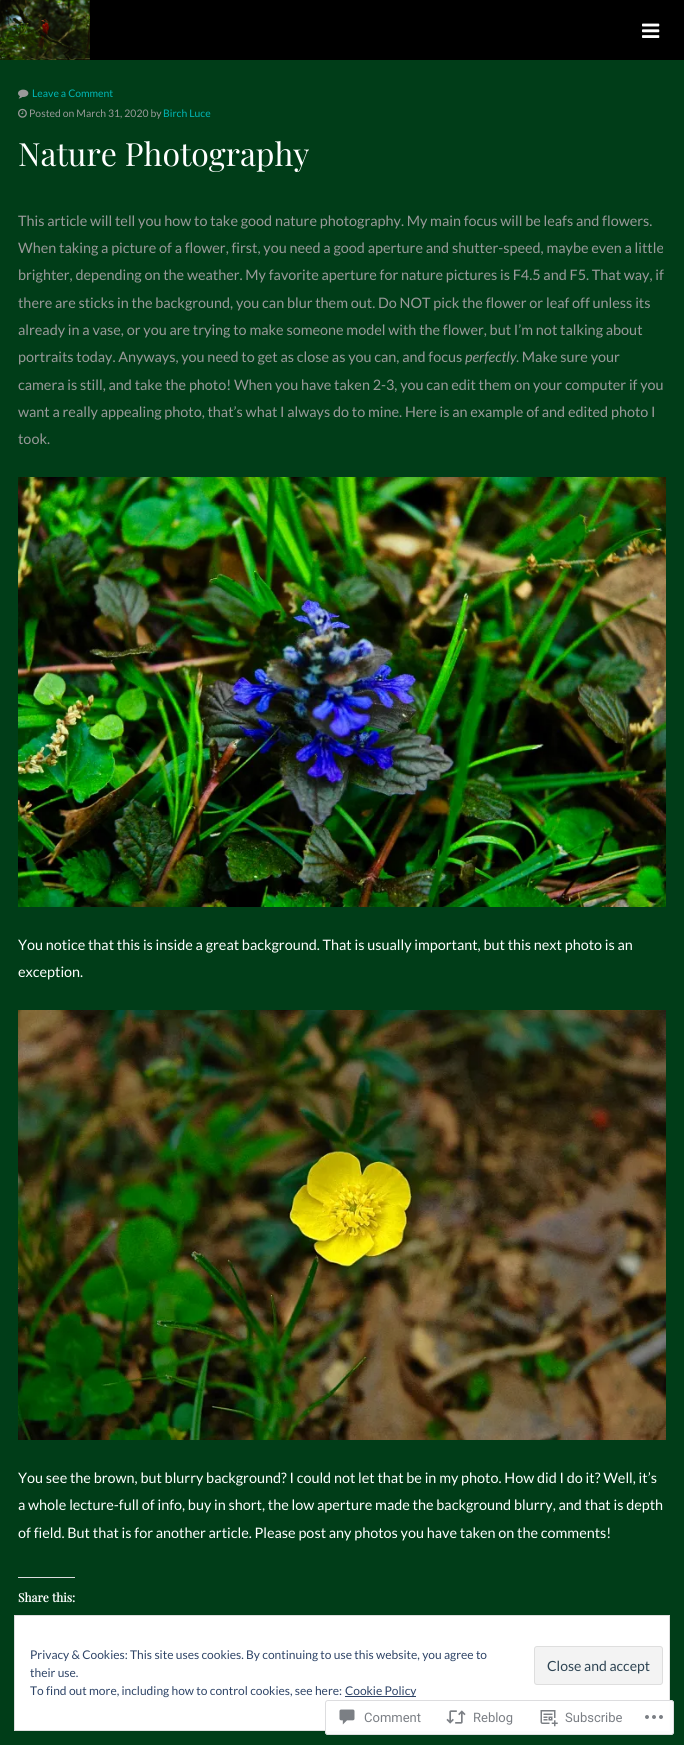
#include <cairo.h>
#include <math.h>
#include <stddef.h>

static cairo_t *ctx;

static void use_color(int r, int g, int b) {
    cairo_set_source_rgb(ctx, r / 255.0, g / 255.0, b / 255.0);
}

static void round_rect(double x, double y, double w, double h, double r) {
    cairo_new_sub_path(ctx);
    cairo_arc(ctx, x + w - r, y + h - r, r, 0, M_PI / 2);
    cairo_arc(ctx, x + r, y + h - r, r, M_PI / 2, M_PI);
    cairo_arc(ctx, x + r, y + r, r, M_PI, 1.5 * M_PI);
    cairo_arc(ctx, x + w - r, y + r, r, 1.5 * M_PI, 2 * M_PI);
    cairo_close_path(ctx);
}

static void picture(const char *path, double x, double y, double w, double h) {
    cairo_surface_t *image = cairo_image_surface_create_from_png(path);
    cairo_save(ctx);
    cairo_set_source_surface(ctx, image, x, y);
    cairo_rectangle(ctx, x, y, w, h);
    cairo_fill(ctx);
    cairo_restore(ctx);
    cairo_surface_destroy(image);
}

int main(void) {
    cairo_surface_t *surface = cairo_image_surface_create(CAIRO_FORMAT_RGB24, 684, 1745);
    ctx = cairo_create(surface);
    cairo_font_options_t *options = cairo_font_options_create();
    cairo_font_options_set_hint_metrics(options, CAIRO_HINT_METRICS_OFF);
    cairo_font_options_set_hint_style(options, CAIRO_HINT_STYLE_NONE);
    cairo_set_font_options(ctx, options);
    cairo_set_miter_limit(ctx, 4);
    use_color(0, 61, 24);
    cairo_paint(ctx);
    use_color(0, 0, 0);
    cairo_rectangle(ctx, 90, 0, 594, 60);
    cairo_fill(ctx);
    picture("img1.png", 0, 0, 90, 60);
    picture("img2.png", 642, 23, 18, 15);
    picture("img3.png", 18, 89, 11, 10);
    cairo_select_font_face(ctx, "Lato", CAIRO_FONT_SLANT_NORMAL, CAIRO_FONT_WEIGHT_NORMAL);
    cairo_set_font_size(ctx, 10.4);
    use_color(0, 183, 183);
    cairo_move_to(ctx, 32, 97);
    cairo_show_text(ctx, "Leave a Comment");
    picture("img4.png", 18, 108, 9, 10);
    use_color(153, 153, 153);
    cairo_move_to(ctx, 29, 117);
    cairo_show_text(ctx, "Posted on March 31, 2020 by");
    use_color(0, 183, 183);
    cairo_move_to(ctx, 163, 117);
    cairo_show_text(ctx, "Birch Luce");
    cairo_select_font_face(ctx, "Playfair Display", CAIRO_FONT_SLANT_NORMAL, CAIRO_FONT_WEIGHT_NORMAL);
    cairo_set_font_size(ctx, 32);
    use_color(255, 255, 255);
    cairo_move_to(ctx, 18, 166);
    cairo_show_text(ctx, "Nature Photography");
    cairo_select_font_face(ctx, "Lato", CAIRO_FONT_SLANT_NORMAL, CAIRO_FONT_WEIGHT_NORMAL);
    cairo_set_font_size(ctx, 14.4);
    use_color(153, 153, 153);
    cairo_move_to(ctx, 18, 226);
    cairo_show_text(ctx, "This article will tell you how to take good nature photography. My main focus will be leafs and flowers.");
    cairo_move_to(ctx, 18, 253);
    cairo_show_text(ctx, "When taking a picture of a flower, first, you need a good aperture and shutter-speed, maybe even a little");
    cairo_move_to(ctx, 18, 280);
    cairo_show_text(ctx, "brighter, depending on the weather. My favorite aperture for nature pictures is F4.5 and F5. That way, if");
    cairo_move_to(ctx, 18, 308);
    cairo_show_text(ctx, "there are sticks in the background, you can blur them out. Do NOT pick the flower or leaf off unless its");
    cairo_move_to(ctx, 18, 335);
    cairo_show_text(ctx, "already in a vase, or you are trying to make someone model with the flower, but I’m not talking about");
    cairo_move_to(ctx, 18, 362);
    cairo_show_text(ctx, "portraits today. Anyways, you need to get as close as you can, and focus");
    cairo_select_font_face(ctx, "Lato", CAIRO_FONT_SLANT_ITALIC, CAIRO_FONT_WEIGHT_NORMAL);
    cairo_move_to(ctx, 465, 362);
    cairo_show_text(ctx, "perfectly");
    cairo_select_font_face(ctx, "Lato", CAIRO_FONT_SLANT_NORMAL, CAIRO_FONT_WEIGHT_NORMAL);
    cairo_move_to(ctx, 516, 362);
    cairo_show_text(ctx, ". Make sure your");
    cairo_move_to(ctx, 18, 390);
    cairo_show_text(ctx, "camera is still, and take the photo! When you have taken 2-3, you can edit them on your computer if you");
    cairo_move_to(ctx, 18, 417);
    cairo_show_text(ctx, "want a really appealing photo, that’s what I always do to mine. Here is an example of and edited photo I");
    cairo_move_to(ctx, 18, 444);
    cairo_show_text(ctx, "took.");
    picture("img5.png", 18, 477, 648, 430);
    use_color(255, 255, 255);
    cairo_move_to(ctx, 18, 950);
    cairo_show_text(ctx, "You notice that this is inside a great background. That is usually important, but this next photo is an");
    cairo_move_to(ctx, 18, 977);
    cairo_show_text(ctx, "exception.");
    picture("img6.png", 18, 1010, 648, 430);
    cairo_move_to(ctx, 18, 1483);
    cairo_show_text(ctx, "You see the brown, but blurry background? I could not let that be in my photo. How did I do it? Well, it’s");
    cairo_move_to(ctx, 18, 1510);
    cairo_show_text(ctx, "a whole lecture-full of info, buy in short, the low aperture made the background blurry, and that is depth");
    cairo_move_to(ctx, 18, 1538);
    cairo_show_text(ctx, "of field. But that is for another article. Please post any photos you have taken on the comments!");
    use_color(220, 220, 222);
    cairo_rectangle(ctx, 18, 1577, 57, 1);
    cairo_fill(ctx);
    cairo_select_font_face(ctx, "Playfair Display", CAIRO_FONT_SLANT_NORMAL, CAIRO_FONT_WEIGHT_BOLD);
    cairo_set_font_size(ctx, 12);
    use_color(255, 255, 255);
    cairo_move_to(ctx, 18, 1602);
    cairo_show_text(ctx, "Share this:");
    cairo_rectangle(ctx, 14.5, 1615.5, 655, 115);
    cairo_fill_preserve(ctx);
    use_color(222, 222, 222);
    cairo_set_line_width(ctx, 1);
    cairo_stroke(ctx);
    cairo_select_font_face(ctx, "Lato", CAIRO_FONT_SLANT_NORMAL, CAIRO_FONT_WEIGHT_NORMAL);
    use_color(46, 68, 103);
    cairo_move_to(ctx, 30, 1659);
    cairo_show_text(ctx, "Privacy & Cookies: This site uses cookies. By continuing to use this website, you agree to");
    cairo_move_to(ctx, 30, 1677);
    cairo_show_text(ctx, "their use.");
    use_color(243, 243, 243);
    round_rect(534.5, 1646.5, 128, 38, 2.5);
    cairo_fill_preserve(ctx);
    use_color(222, 222, 222);
    cairo_stroke(ctx);
    cairo_set_font_size(ctx, 14);
    use_color(46, 68, 83);
    cairo_move_to(ctx, 547, 1671);
    cairo_show_text(ctx, "Close and accept");
    cairo_set_font_size(ctx, 12);
    use_color(46, 68, 103);
    cairo_move_to(ctx, 30, 1695);
    cairo_show_text(ctx, "To find out more, including how to control cookies, see here:");
    cairo_rectangle(ctx, 345, 1696, 71, 1);
    cairo_fill(ctx);
    cairo_move_to(ctx, 345, 1695);
    cairo_show_text(ctx, "Cookie Policy");
    cairo_set_source_rgba(ctx, 1, 1, 1, 0.98);
    round_rect(325, 1700, 349, 35, 3);
    cairo_fill(ctx);
    round_rect(325.5, 1700.5, 348, 34, 2.5);
    cairo_set_source_rgba(ctx, 0.863, 0.863, 0.871, 0.98);
    cairo_stroke(ctx);
    picture("img7.png", 339, 1709, 16, 16);
    cairo_select_font_face(ctx, "Roboto", CAIRO_FONT_SLANT_NORMAL, CAIRO_FONT_WEIGHT_NORMAL);
    cairo_set_font_size(ctx, 13);
    use_color(123, 127, 133);
    cairo_move_to(ctx, 364, 1722);
    cairo_show_text(ctx, "Comment");
    picture("img8.png", 446, 1710, 20, 14);
    cairo_move_to(ctx, 473, 1722);
    cairo_show_text(ctx, "Reblog");
    picture("img9.png", 540, 1710, 18, 17);
    cairo_move_to(ctx, 565, 1722);
    cairo_show_text(ctx, "Subscribe");
    picture("img10.png", 645, 1715, 18, 4);
    cairo_surface_write_to_png(surface, "result.png");
    cairo_font_options_destroy(options);
    cairo_destroy(ctx);
    cairo_surface_destroy(surface);
    return 0;
}
